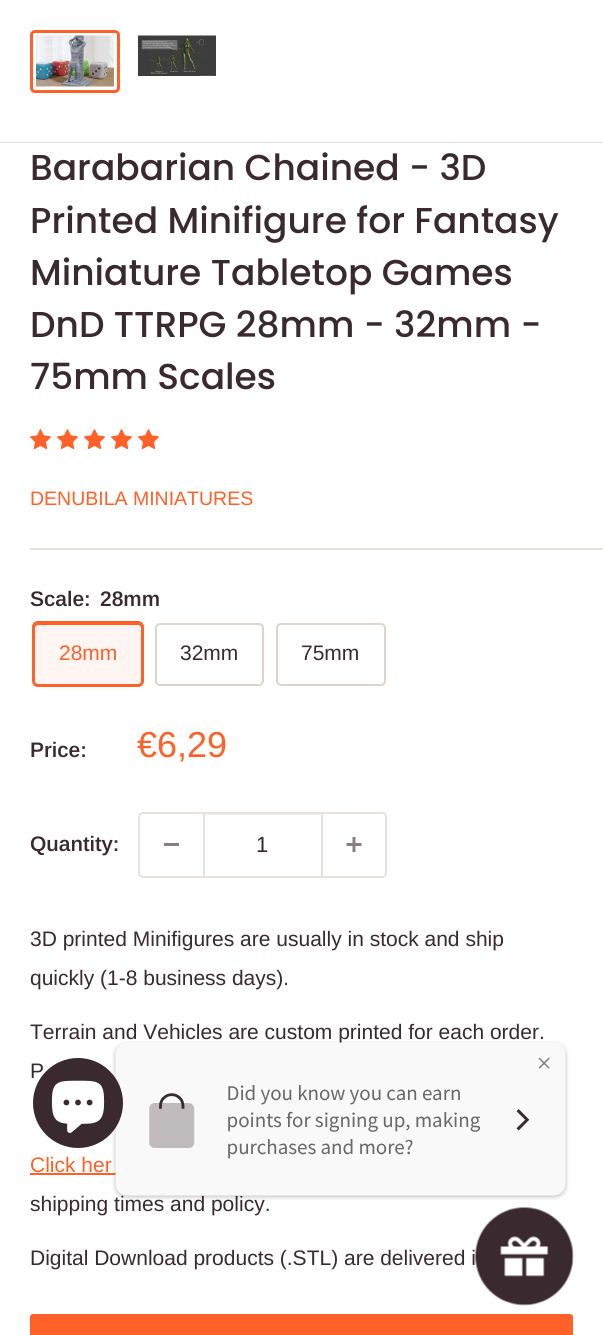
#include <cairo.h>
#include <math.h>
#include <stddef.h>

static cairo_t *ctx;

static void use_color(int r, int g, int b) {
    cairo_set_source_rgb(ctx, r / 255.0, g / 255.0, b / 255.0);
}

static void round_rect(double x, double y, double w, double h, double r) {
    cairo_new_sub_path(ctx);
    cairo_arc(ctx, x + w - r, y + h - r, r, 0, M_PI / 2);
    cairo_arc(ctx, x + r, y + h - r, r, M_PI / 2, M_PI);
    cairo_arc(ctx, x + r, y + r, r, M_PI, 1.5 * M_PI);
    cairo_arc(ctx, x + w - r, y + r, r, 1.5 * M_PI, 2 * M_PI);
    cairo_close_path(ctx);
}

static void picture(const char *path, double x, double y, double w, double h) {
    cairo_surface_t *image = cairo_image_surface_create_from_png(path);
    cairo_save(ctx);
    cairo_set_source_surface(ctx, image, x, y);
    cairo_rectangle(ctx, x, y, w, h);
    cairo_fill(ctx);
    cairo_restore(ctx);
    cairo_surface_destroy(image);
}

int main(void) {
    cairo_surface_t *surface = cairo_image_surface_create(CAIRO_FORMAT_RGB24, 603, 1335);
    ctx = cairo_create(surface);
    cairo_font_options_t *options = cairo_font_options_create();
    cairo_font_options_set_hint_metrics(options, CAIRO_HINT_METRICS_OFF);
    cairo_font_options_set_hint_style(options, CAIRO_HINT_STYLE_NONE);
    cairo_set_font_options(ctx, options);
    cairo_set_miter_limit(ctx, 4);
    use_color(255, 255, 255);
    cairo_paint(ctx);
    use_color(231, 226, 222);
    cairo_rectangle(ctx, 0, 142, 603, 1);
    cairo_fill(ctx);
    round_rect(31.5, 31.5, 87, 60, 3.5);
    use_color(255, 97, 40);
    cairo_set_line_width(ctx, 3);
    cairo_stroke(ctx);
    picture("img1.png", 36, 35, 78, 52);
    picture("img2.png", 138, 35, 78, 41);
    cairo_select_font_face(ctx, "Poppins Medium", CAIRO_FONT_SLANT_NORMAL, CAIRO_FONT_WEIGHT_NORMAL);
    cairo_set_font_size(ctx, 36);
    use_color(58, 42, 47);
    cairo_move_to(ctx, 30, 180);
    cairo_show_text(ctx, "Barabarian Chained - 3D");
    cairo_move_to(ctx, 30, 233);
    cairo_show_text(ctx, "Printed Minifigure for Fantasy");
    cairo_move_to(ctx, 30, 285);
    cairo_show_text(ctx, "Miniature Tabletop Games");
    cairo_move_to(ctx, 30, 337);
    cairo_show_text(ctx, "DnD TTRPG 28mm - 32mm -");
    cairo_move_to(ctx, 30, 389);
    cairo_show_text(ctx, "75mm Scales");
    picture("img3.png", 30, 429, 21, 21);
    picture("img3.png", 57, 429, 21, 21);
    picture("img3.png", 84, 429, 21, 21);
    picture("img3.png", 111, 429, 21, 21);
    picture("img3.png", 138, 429, 21, 21);
    cairo_select_font_face(ctx, "Arimo", CAIRO_FONT_SLANT_NORMAL, CAIRO_FONT_WEIGHT_NORMAL);
    cairo_set_font_size(ctx, 19.5);
    use_color(255, 97, 40);
    cairo_move_to(ctx, 30, 505);
    cairo_show_text(ctx, "DENUBILA MINIATURES");
    use_color(231, 226, 222);
    cairo_rectangle(ctx, 30, 548, 573, 2);
    cairo_fill(ctx);
    cairo_select_font_face(ctx, "Arimo SemiBold", CAIRO_FONT_SLANT_NORMAL, CAIRO_FONT_WEIGHT_NORMAL);
    cairo_set_font_size(ctx, 21);
    use_color(58, 42, 47);
    cairo_move_to(ctx, 30, 606);
    cairo_show_text(ctx, "Scale:");
    cairo_move_to(ctx, 100, 606);
    cairo_show_text(ctx, "28mm");
    round_rect(33, 622, 110, 64, 5);
    use_color(255, 97, 40);
    cairo_set_line_width(ctx, 2);
    cairo_stroke(ctx);
    cairo_set_source_rgba(ctx, 1, 0.38, 0.157, 0.06);
    cairo_rectangle(ctx, 33, 623, 110, 63);
    cairo_fill(ctx);
    round_rect(34, 624, 108, 61, 4);
    use_color(255, 97, 40);
    cairo_stroke(ctx);
    cairo_select_font_face(ctx, "Arimo", CAIRO_FONT_SLANT_NORMAL, CAIRO_FONT_WEIGHT_NORMAL);
    cairo_move_to(ctx, 59, 660);
    cairo_show_text(ctx, "28mm");
    round_rect(156, 624, 107, 61, 4);
    use_color(220, 213, 207);
    cairo_stroke(ctx);
    use_color(58, 42, 47);
    cairo_move_to(ctx, 180, 660);
    cairo_show_text(ctx, "32mm");
    round_rect(277, 624, 108, 61, 4);
    use_color(220, 213, 207);
    cairo_stroke(ctx);
    use_color(58, 42, 47);
    cairo_move_to(ctx, 301, 660);
    cairo_show_text(ctx, "75mm");
    cairo_select_font_face(ctx, "Arimo SemiBold", CAIRO_FONT_SLANT_NORMAL, CAIRO_FONT_WEIGHT_NORMAL);
    cairo_move_to(ctx, 30, 757);
    cairo_show_text(ctx, "Price:");
    cairo_select_font_face(ctx, "Arimo", CAIRO_FONT_SLANT_NORMAL, CAIRO_FONT_WEIGHT_NORMAL);
    cairo_set_font_size(ctx, 36);
    use_color(255, 97, 40);
    cairo_move_to(ctx, 137, 757);
    cairo_show_text(ctx, "€6,29");
    cairo_select_font_face(ctx, "Arimo SemiBold", CAIRO_FONT_SLANT_NORMAL, CAIRO_FONT_WEIGHT_NORMAL);
    cairo_set_font_size(ctx, 21);
    use_color(58, 42, 47);
    cairo_move_to(ctx, 30, 851);
    cairo_show_text(ctx, "Quantity:");
    round_rect(139, 813, 247, 64, 4);
    use_color(231, 226, 222);
    cairo_stroke(ctx);
    use_color(137, 127, 130);
    cairo_rectangle(ctx, 164, 843, 15, 3);
    cairo_fill(ctx);
    cairo_set_source_rgba(ctx, 0.906, 0.886, 0.871, 0.4);
    cairo_rectangle(ctx, 204, 814, 117, 1);
    cairo_fill(ctx);
    use_color(231, 226, 222);
    cairo_rectangle(ctx, 321, 813, 2, 63);
    cairo_fill(ctx);
    cairo_rectangle(ctx, 203, 813, 2, 63);
    cairo_fill(ctx);
    cairo_select_font_face(ctx, "Arimo", CAIRO_FONT_SLANT_NORMAL, CAIRO_FONT_WEIGHT_NORMAL);
    cairo_set_font_size(ctx, 22);
    use_color(58, 42, 47);
    cairo_move_to(ctx, 256, 852);
    cairo_show_text(ctx, "1");
    picture("img4.png", 346, 837, 16, 15);
    cairo_set_font_size(ctx, 21);
    cairo_move_to(ctx, 30, 946);
    cairo_show_text(ctx, "3D printed Minifigures are usually in stock and ship");
    cairo_move_to(ctx, 30, 985);
    cairo_show_text(ctx, "quickly (1-8 business days).");
    cairo_move_to(ctx, 30, 1039);
    cairo_show_text(ctx, "Terrain and Vehicles are custom printed for each order.");
    cairo_move_to(ctx, 30, 1078);
    cairo_show_text(ctx, "P");
    use_color(255, 97, 40);
    cairo_move_to(ctx, 30, 1172);
    cairo_show_text(ctx, "Click her");
    cairo_rectangle(ctx, 30, 1173, 86, 2);
    cairo_fill(ctx);
    use_color(58, 42, 47);
    cairo_move_to(ctx, 30, 1211);
    cairo_show_text(ctx, "shipping times and policy.");
    cairo_move_to(ctx, 30, 1265);
    cairo_show_text(ctx, "Digital Download products (.STL) are delivered i");
    use_color(255, 97, 40);
    round_rect(30, 1314, 543, 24, 3);
    cairo_fill(ctx);
    picture("img6.png", 112, 1041, 457, 159);
    use_color(58, 42, 47);
    cairo_arc(ctx, 78, 1103, 45, 0, 2 * M_PI);
    cairo_fill(ctx);
    picture("img5.png", 51, 1080, 54, 53);
    picture("img7.png", 475, 1207, 99, 99);
    cairo_surface_write_to_png(surface, "result.png");
    cairo_font_options_destroy(options);
    cairo_destroy(ctx);
    cairo_surface_destroy(surface);
    return 0;
}
